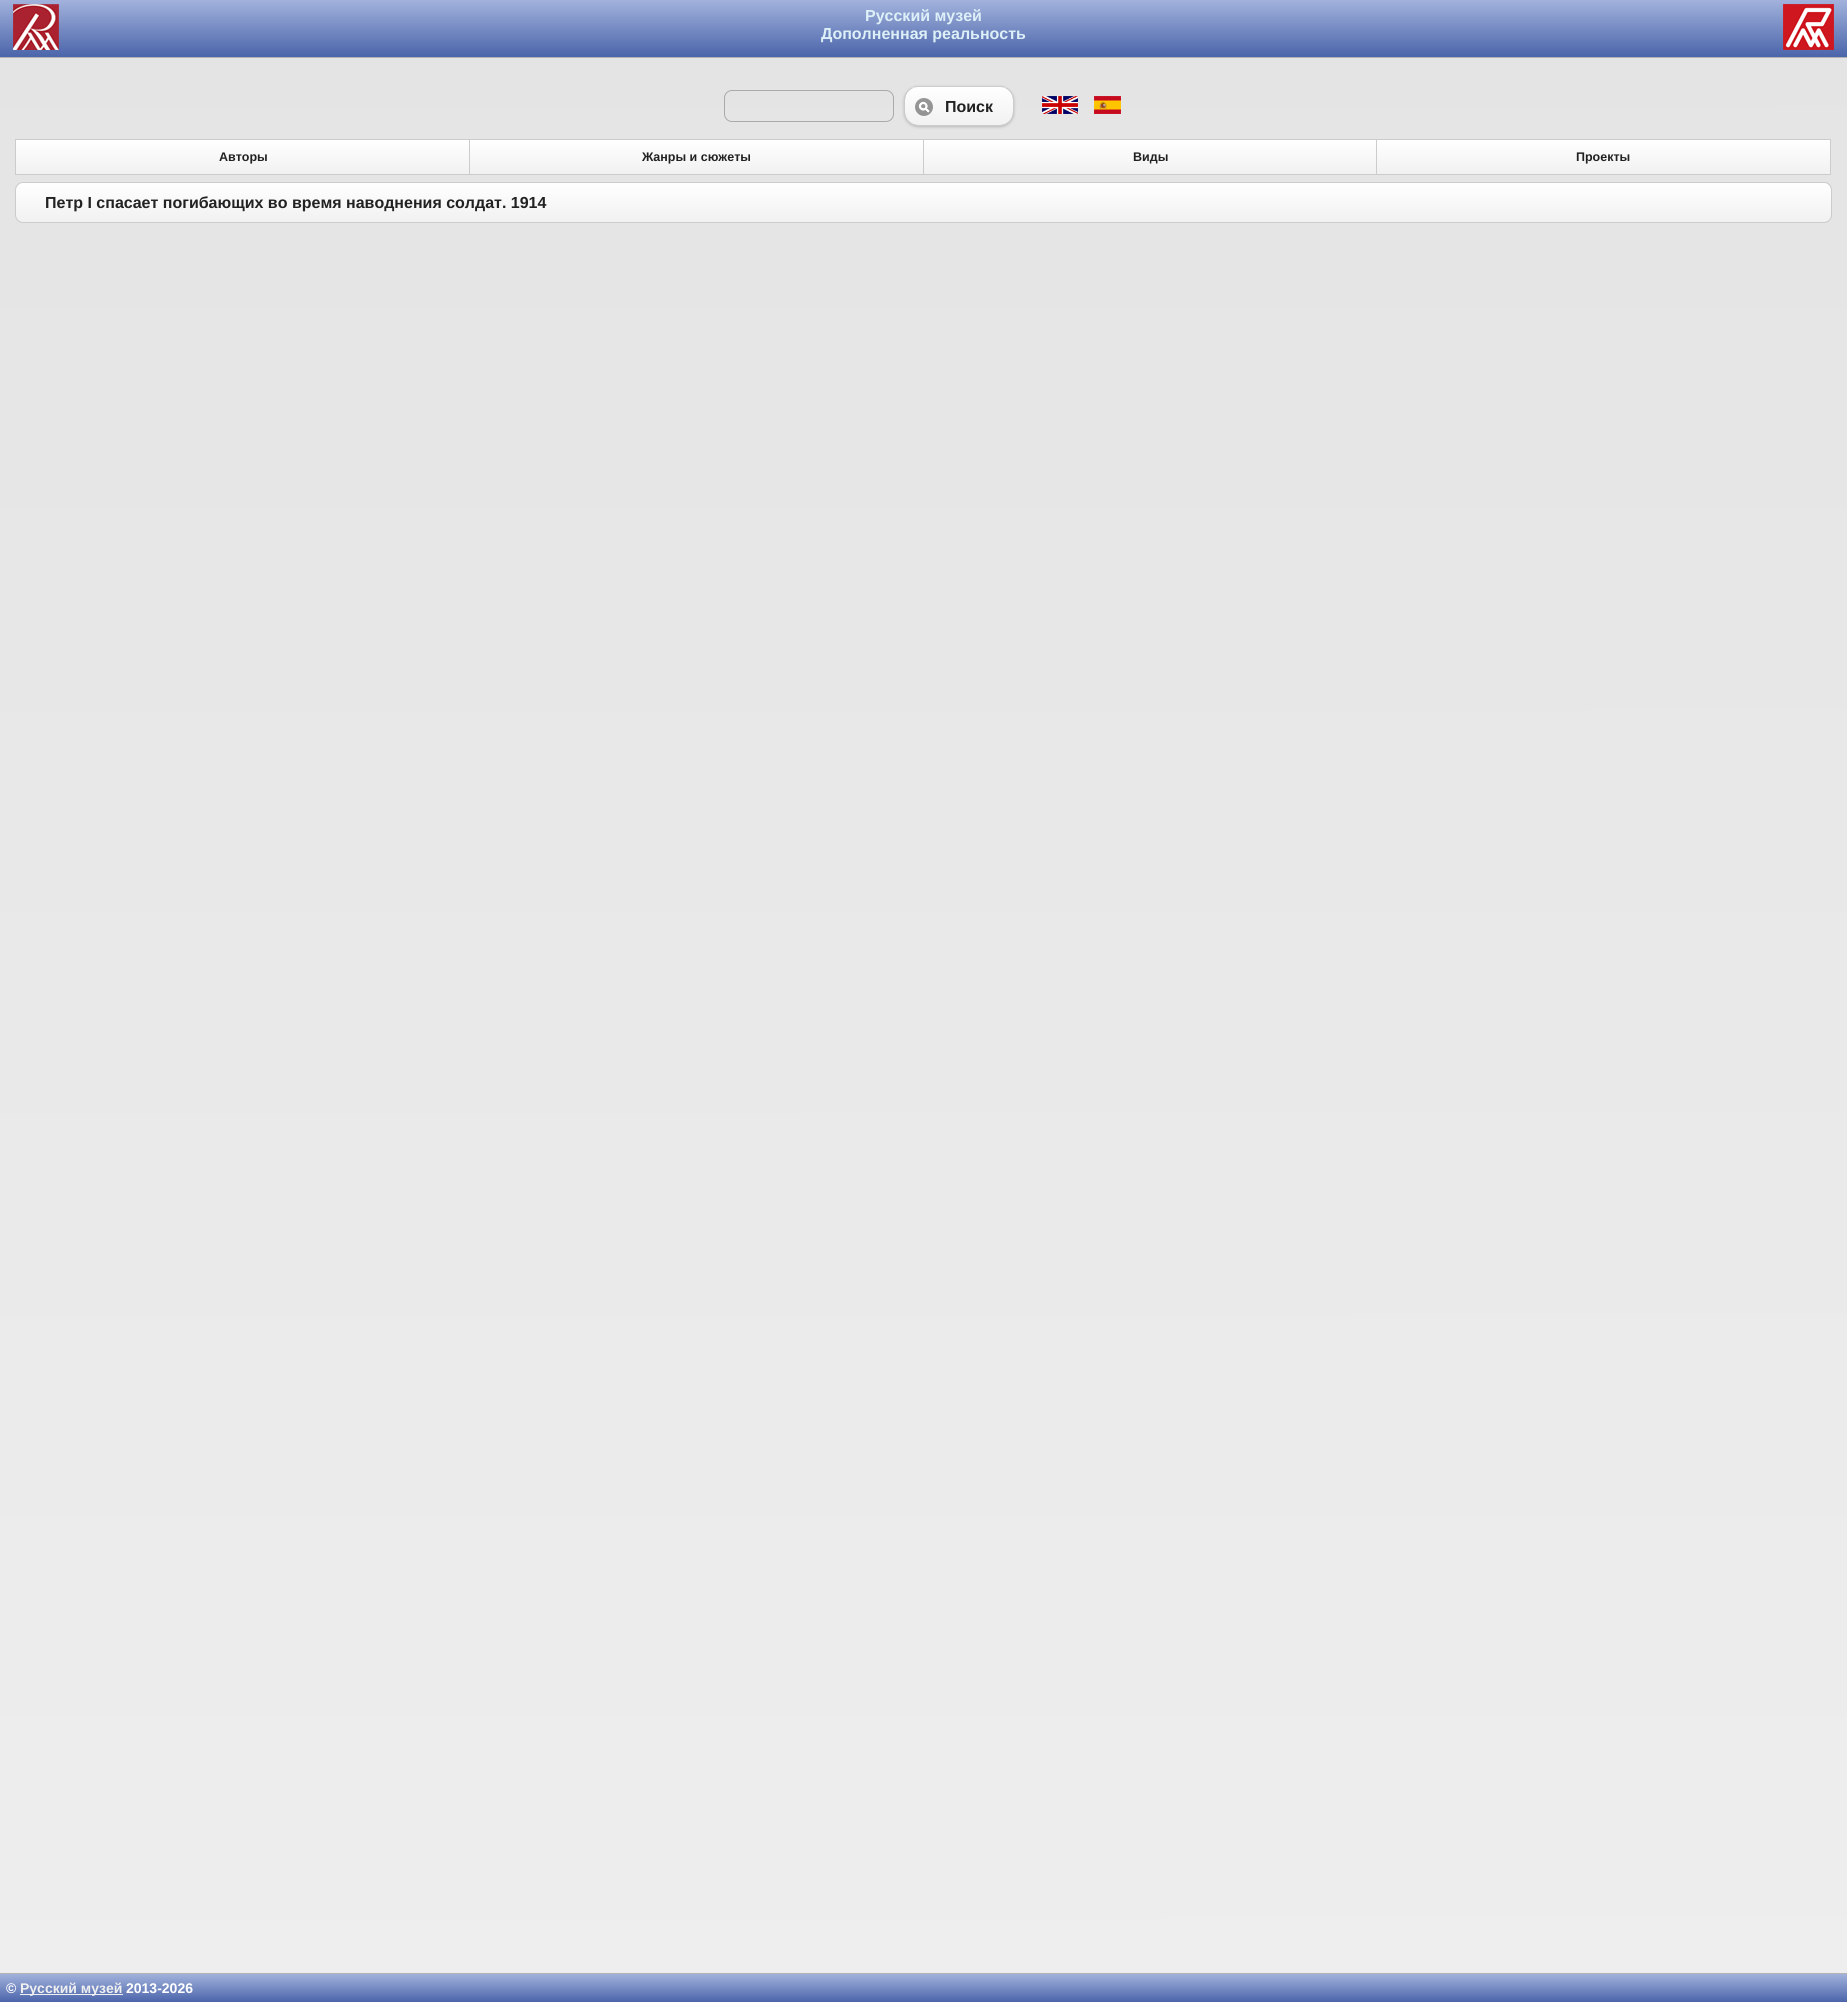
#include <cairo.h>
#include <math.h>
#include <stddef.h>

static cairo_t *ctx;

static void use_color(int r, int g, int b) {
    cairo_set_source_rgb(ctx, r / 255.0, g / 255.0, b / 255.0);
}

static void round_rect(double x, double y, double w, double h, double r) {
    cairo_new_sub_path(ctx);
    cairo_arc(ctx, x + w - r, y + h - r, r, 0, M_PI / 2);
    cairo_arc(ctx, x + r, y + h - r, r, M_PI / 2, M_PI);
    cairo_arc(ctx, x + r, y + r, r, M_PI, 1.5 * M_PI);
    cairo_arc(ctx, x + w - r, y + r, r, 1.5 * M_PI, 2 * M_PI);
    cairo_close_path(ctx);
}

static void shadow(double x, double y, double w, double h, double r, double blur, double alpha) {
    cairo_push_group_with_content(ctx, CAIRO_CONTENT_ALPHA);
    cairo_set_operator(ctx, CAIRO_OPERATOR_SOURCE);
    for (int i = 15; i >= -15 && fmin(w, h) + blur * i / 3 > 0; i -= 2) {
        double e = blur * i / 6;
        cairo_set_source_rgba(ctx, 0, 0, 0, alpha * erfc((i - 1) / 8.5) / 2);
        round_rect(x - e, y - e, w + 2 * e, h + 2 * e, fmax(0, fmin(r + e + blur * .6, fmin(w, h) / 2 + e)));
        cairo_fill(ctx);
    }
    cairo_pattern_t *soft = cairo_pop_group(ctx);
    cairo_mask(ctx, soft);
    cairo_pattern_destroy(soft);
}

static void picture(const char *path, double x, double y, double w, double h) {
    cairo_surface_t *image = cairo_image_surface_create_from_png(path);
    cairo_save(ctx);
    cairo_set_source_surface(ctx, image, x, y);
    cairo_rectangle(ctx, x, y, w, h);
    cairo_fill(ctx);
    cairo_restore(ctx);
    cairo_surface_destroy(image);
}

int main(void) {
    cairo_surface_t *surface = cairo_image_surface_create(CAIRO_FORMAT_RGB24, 1847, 2002);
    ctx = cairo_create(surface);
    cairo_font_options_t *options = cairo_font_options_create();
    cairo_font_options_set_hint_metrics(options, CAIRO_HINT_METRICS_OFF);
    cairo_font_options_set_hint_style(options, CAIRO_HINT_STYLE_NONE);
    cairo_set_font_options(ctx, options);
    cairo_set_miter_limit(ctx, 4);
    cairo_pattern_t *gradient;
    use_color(255, 255, 255);
    cairo_paint(ctx);
    gradient = cairo_pattern_create_linear(923, 0, 924, 2002);
    cairo_pattern_add_color_stop_rgba(gradient, 0, 0.894, 0.894, 0.894, 1);
    cairo_pattern_add_color_stop_rgba(gradient, 1, 0.933, 0.933, 0.933, 1);
    cairo_set_source(ctx, gradient);
    cairo_pattern_destroy(gradient);
    cairo_rectangle(ctx, 0, 58, 1847, 1915);
    cairo_fill(ctx);
    gradient = cairo_pattern_create_linear(924, 0, 924, 57);
    cairo_pattern_add_color_stop_rgba(gradient, 0, 0.635, 0.698, 0.863, 1);
    cairo_pattern_add_color_stop_rgba(gradient, 1, 0.294, 0.396, 0.667, 1);
    cairo_set_source(ctx, gradient);
    cairo_pattern_destroy(gradient);
    cairo_rectangle(ctx, 0, 0, 1847, 57);
    cairo_fill(ctx);
    use_color(179, 179, 179);
    cairo_rectangle(ctx, 0, 57, 1847, 1);
    cairo_fill(ctx);
    picture("img1.png", 13, 4, 46, 46);
    cairo_select_font_face(ctx, "Liberation Sans", CAIRO_FONT_SLANT_NORMAL, CAIRO_FONT_WEIGHT_BOLD);
    cairo_set_font_size(ctx, 16);
    use_color(221, 240, 248);
    cairo_move_to(ctx, 865, 21);
    cairo_show_text(ctx, "Русский музей");
    picture("img2.png", 1783, 4, 51, 46);
    cairo_move_to(ctx, 821, 39);
    cairo_show_text(ctx, "Дополненная реальность");
    round_rect(724.5, 90.5, 169, 31, 7.5);
    use_color(170, 170, 170);
    cairo_set_line_width(ctx, 1);
    cairo_stroke(ctx);
    use_color(0, 0, 0);
    shadow(904, 87, 110, 40, 14, 1.5, 0.2);
    gradient = cairo_pattern_create_linear(959, 87, 959, 125);
    cairo_pattern_add_color_stop_rgba(gradient, 0, 1, 1, 1, 1);
    cairo_pattern_add_color_stop_rgba(gradient, 1, 0.945, 0.945, 0.945, 1);
    cairo_set_source(ctx, gradient);
    cairo_pattern_destroy(gradient);
    round_rect(905, 87, 108, 38, 13);
    cairo_fill(ctx);
    round_rect(904.5, 86.5, 109, 39, 13.5);
    use_color(204, 204, 204);
    cairo_stroke(ctx);
    cairo_set_source_rgba(ctx, 1, 1, 1, 0.3);
    cairo_rectangle(ctx, 912, 87, 94, 1);
    cairo_fill(ctx);
    use_color(249, 249, 249);
    cairo_new_path(ctx);
    cairo_move_to(ctx, 933, 107.5);
    cairo_curve_to(ctx, 932.5, 118.5, 915.5, 118.5, 915, 107.5);
    cairo_curve_to(ctx, 914.5, 120, 933.5, 120, 933, 107.5);
    cairo_close_path(ctx);
    cairo_fill(ctx);
    cairo_set_source_rgba(ctx, 0, 0, 0, 0.4);
    cairo_arc(ctx, 924, 107, 9, 0, 2 * M_PI);
    cairo_fill(ctx);
    picture("img3.png", 918, 101, 12, 12);
    use_color(34, 34, 34);
    cairo_move_to(ctx, 945, 112);
    cairo_show_text(ctx, "Поиск");
    picture("img4.png", 1042, 96, 36, 18);
    picture("img5.png", 1094, 96, 27, 18);
    gradient = cairo_pattern_create_linear(243, 140, 243, 174);
    cairo_pattern_add_color_stop_rgba(gradient, 0, 1, 1, 1, 1);
    cairo_pattern_add_color_stop_rgba(gradient, 1, 0.945, 0.945, 0.945, 1);
    cairo_set_source(ctx, gradient);
    cairo_pattern_destroy(gradient);
    cairo_rectangle(ctx, 16, 140, 453, 34);
    cairo_fill(ctx);
    use_color(204, 204, 204);
    cairo_rectangle(ctx, 15, 139, 1363, 1);
    cairo_fill(ctx);
    cairo_rectangle(ctx, 15, 174, 1363, 1);
    cairo_fill(ctx);
    cairo_rectangle(ctx, 15, 139, 1, 36);
    cairo_fill(ctx);
    cairo_set_font_size(ctx, 12.5);
    use_color(34, 34, 34);
    cairo_move_to(ctx, 219, 161);
    cairo_show_text(ctx, "Авторы");
    gradient = cairo_pattern_create_linear(697, 140, 697, 174);
    cairo_pattern_add_color_stop_rgba(gradient, 0, 1, 1, 1, 1);
    cairo_pattern_add_color_stop_rgba(gradient, 1, 0.945, 0.945, 0.945, 1);
    cairo_set_source(ctx, gradient);
    cairo_pattern_destroy(gradient);
    cairo_rectangle(ctx, 470, 140, 453, 34);
    cairo_fill(ctx);
    use_color(204, 204, 204);
    cairo_rectangle(ctx, 469, 139, 1, 36);
    cairo_fill(ctx);
    use_color(34, 34, 34);
    cairo_move_to(ctx, 642, 161);
    cairo_show_text(ctx, "Жанры и сюжеты");
    gradient = cairo_pattern_create_linear(1151, 140, 1151, 174);
    cairo_pattern_add_color_stop_rgba(gradient, 0, 1, 1, 1, 1);
    cairo_pattern_add_color_stop_rgba(gradient, 1, 0.945, 0.945, 0.945, 1);
    cairo_set_source(ctx, gradient);
    cairo_pattern_destroy(gradient);
    cairo_rectangle(ctx, 924, 140, 452, 34);
    cairo_fill(ctx);
    use_color(204, 204, 204);
    cairo_rectangle(ctx, 923, 139, 1, 36);
    cairo_fill(ctx);
    use_color(34, 34, 34);
    cairo_move_to(ctx, 1133, 161);
    cairo_show_text(ctx, "Виды");
    gradient = cairo_pattern_create_linear(1604, 140, 1604, 174);
    cairo_pattern_add_color_stop_rgba(gradient, 0, 1, 1, 1, 1);
    cairo_pattern_add_color_stop_rgba(gradient, 1, 0.945, 0.945, 0.945, 1);
    cairo_set_source(ctx, gradient);
    cairo_pattern_destroy(gradient);
    cairo_rectangle(ctx, 1377, 140, 453, 34);
    cairo_fill(ctx);
    cairo_rectangle(ctx, 1376.5, 139.5, 454, 35);
    use_color(204, 204, 204);
    cairo_stroke(ctx);
    use_color(34, 34, 34);
    cairo_move_to(ctx, 1576, 161);
    cairo_show_text(ctx, "Проекты");
    gradient = cairo_pattern_create_linear(924, 183, 924, 222);
    cairo_pattern_add_color_stop_rgba(gradient, 0, 1, 1, 1, 1);
    cairo_pattern_add_color_stop_rgba(gradient, 1, 0.945, 0.945, 0.945, 1);
    cairo_set_source(ctx, gradient);
    cairo_pattern_destroy(gradient);
    round_rect(16, 183, 1815, 39, 7);
    cairo_fill(ctx);
    round_rect(15.5, 182.5, 1816, 40, 7.5);
    use_color(204, 204, 204);
    cairo_stroke(ctx);
    cairo_set_source_rgba(ctx, 1, 1, 1, 0.3);
    cairo_rectangle(ctx, 20, 183, 1807, 1);
    cairo_fill(ctx);
    cairo_set_font_size(ctx, 16);
    use_color(34, 34, 34);
    cairo_move_to(ctx, 45, 208);
    cairo_show_text(ctx, "Петр I спасает погибающих во время наводнения солдат. 1914");
    gradient = cairo_pattern_create_linear(930, 1974, 930, 2002);
    cairo_pattern_add_color_stop_rgba(gradient, 0, 0.635, 0.698, 0.863, 1);
    cairo_pattern_add_color_stop_rgba(gradient, 1, 0.294, 0.396, 0.667, 1);
    cairo_set_source(ctx, gradient);
    cairo_pattern_destroy(gradient);
    cairo_rectangle(ctx, 0, 1974, 1847, 28);
    cairo_fill(ctx);
    use_color(179, 179, 179);
    cairo_rectangle(ctx, 0, 1973, 1847, 1);
    cairo_fill(ctx);
    cairo_set_font_size(ctx, 14);
    use_color(255, 255, 255);
    cairo_move_to(ctx, 6, 1993);
    cairo_show_text(ctx, "©");
    use_color(240, 240, 240);
    cairo_rectangle(ctx, 20, 1994, 103, 1);
    cairo_fill(ctx);
    cairo_move_to(ctx, 20, 1993);
    cairo_show_text(ctx, "Русский музей");
    use_color(255, 255, 255);
    cairo_move_to(ctx, 126, 1993);
    cairo_show_text(ctx, "2013-2026");
    cairo_surface_write_to_png(surface, "result.png");
    cairo_font_options_destroy(options);
    cairo_destroy(ctx);
    cairo_surface_destroy(surface);
    return 0;
}
